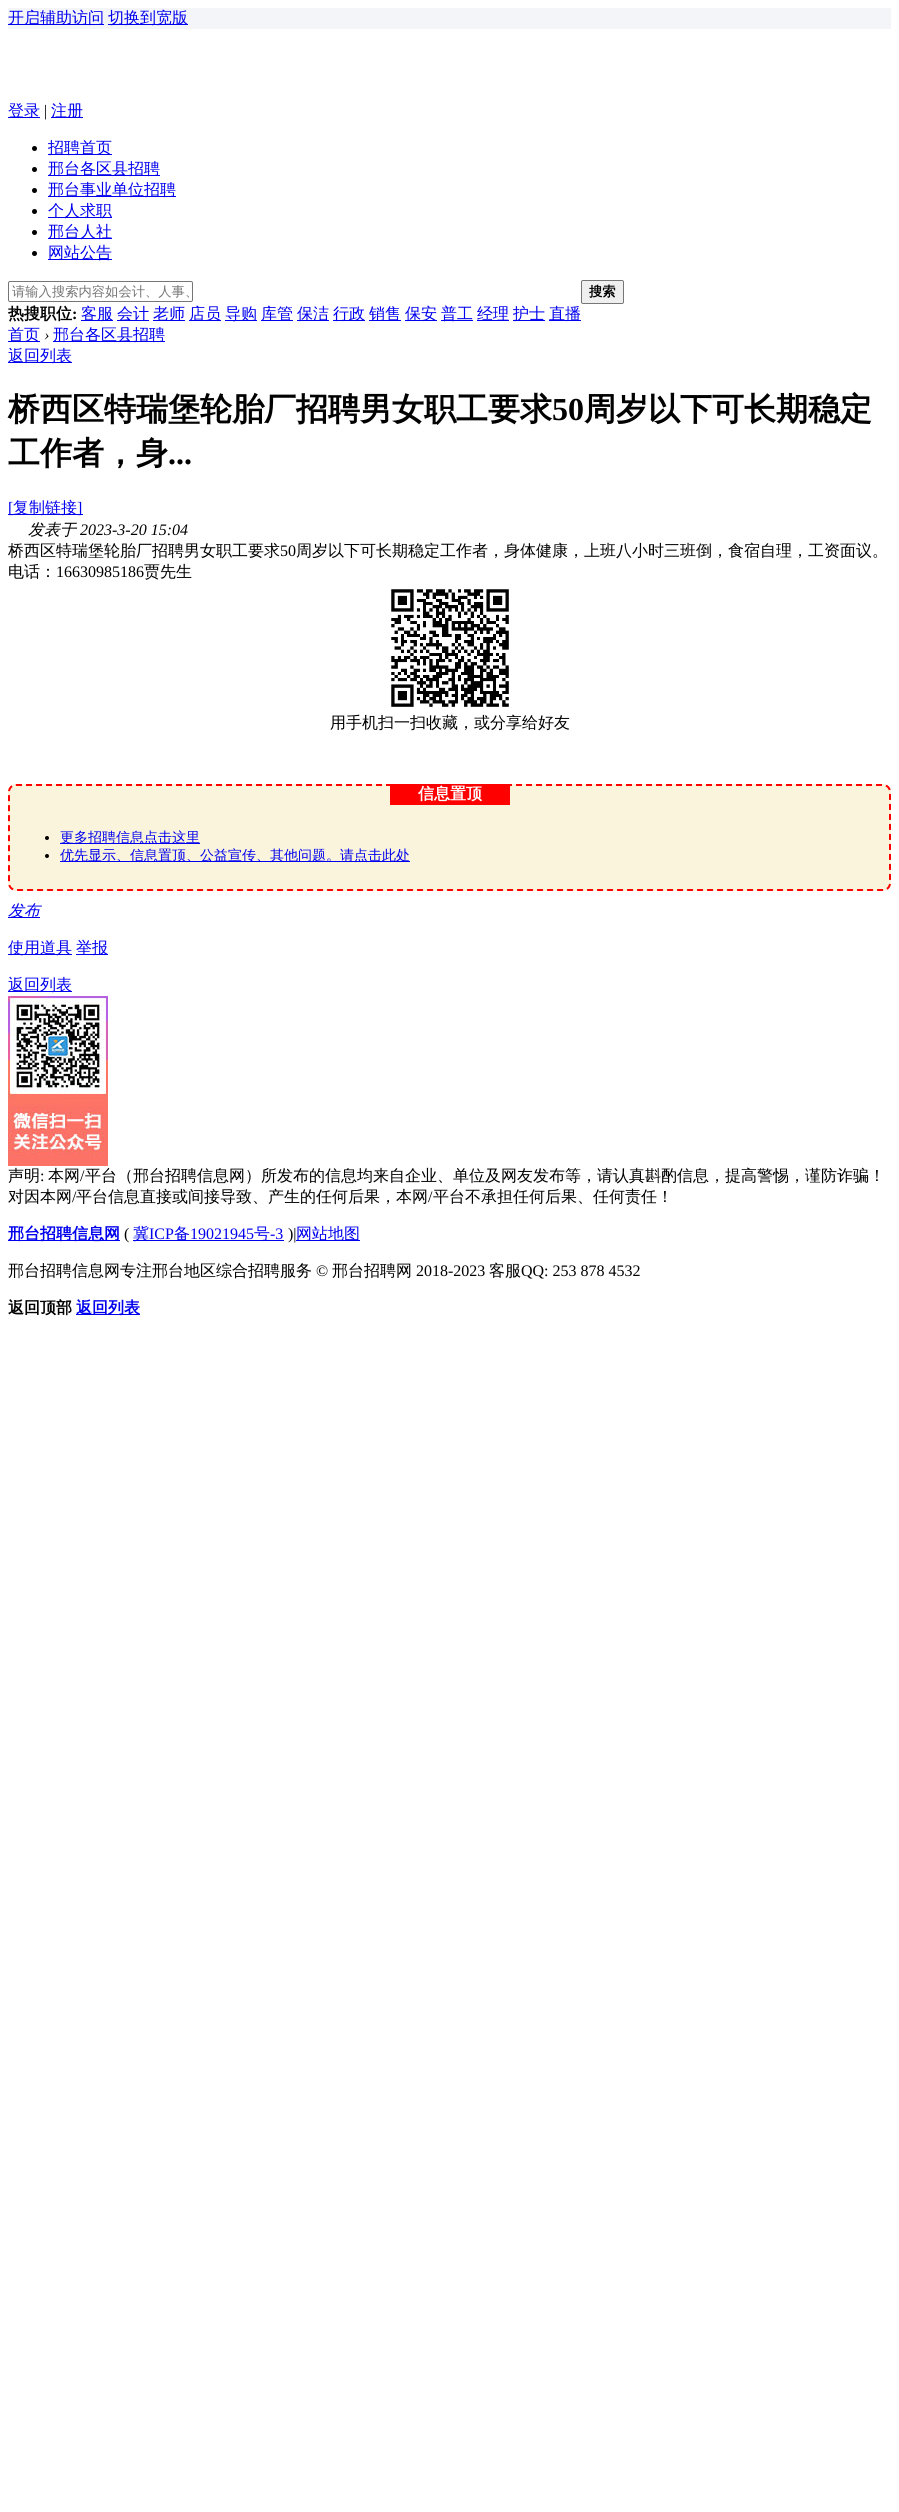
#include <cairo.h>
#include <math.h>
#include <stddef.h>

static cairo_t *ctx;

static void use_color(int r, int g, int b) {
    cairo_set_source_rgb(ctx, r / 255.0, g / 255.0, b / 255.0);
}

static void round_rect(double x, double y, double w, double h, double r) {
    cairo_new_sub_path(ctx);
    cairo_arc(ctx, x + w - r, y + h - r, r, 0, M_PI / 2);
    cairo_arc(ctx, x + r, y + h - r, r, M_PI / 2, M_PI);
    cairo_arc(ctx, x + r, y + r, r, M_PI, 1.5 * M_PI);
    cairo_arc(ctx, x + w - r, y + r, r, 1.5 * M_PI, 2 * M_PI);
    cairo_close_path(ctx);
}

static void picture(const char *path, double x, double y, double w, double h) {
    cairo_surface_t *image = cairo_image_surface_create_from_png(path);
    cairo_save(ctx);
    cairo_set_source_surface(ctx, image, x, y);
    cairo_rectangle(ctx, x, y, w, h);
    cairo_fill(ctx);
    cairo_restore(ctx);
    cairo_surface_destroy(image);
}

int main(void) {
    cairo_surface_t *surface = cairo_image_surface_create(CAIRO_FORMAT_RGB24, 899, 2512);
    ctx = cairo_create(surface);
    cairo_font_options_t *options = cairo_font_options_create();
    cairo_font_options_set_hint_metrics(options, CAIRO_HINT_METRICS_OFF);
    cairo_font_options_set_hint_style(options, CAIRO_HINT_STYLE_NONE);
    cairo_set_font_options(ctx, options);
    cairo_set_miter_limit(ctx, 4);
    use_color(255, 255, 255);
    cairo_paint(ctx);
    use_color(244, 245, 248);
    cairo_rectangle(ctx, 8, 8, 883, 21);
    cairo_fill(ctx);
    use_color(0, 0, 238);
    cairo_rectangle(ctx, 8, 24, 96, 1);
    cairo_fill(ctx);
    cairo_select_font_face(ctx, "WenQuanYi Zen Hei Medium", CAIRO_FONT_SLANT_NORMAL, CAIRO_FONT_WEIGHT_NORMAL);
    cairo_set_font_size(ctx, 16);
    cairo_move_to(ctx, 8, 23);
    cairo_show_text(ctx, "开启辅助访问");
    cairo_rectangle(ctx, 108, 24, 80, 1);
    cairo_fill(ctx);
    cairo_move_to(ctx, 108, 23);
    cairo_show_text(ctx, "切换到宽版");
    cairo_rectangle(ctx, 8, 117, 32, 1);
    cairo_fill(ctx);
    cairo_move_to(ctx, 8, 116);
    cairo_show_text(ctx, "登录");
    cairo_select_font_face(ctx, "Liberation Serif", CAIRO_FONT_SLANT_NORMAL, CAIRO_FONT_WEIGHT_NORMAL);
    use_color(0, 0, 0);
    cairo_move_to(ctx, 44, 116);
    cairo_show_text(ctx, "|");
    use_color(0, 0, 238);
    cairo_rectangle(ctx, 51, 117, 32, 1);
    cairo_fill(ctx);
    cairo_select_font_face(ctx, "WenQuanYi Zen Hei Medium", CAIRO_FONT_SLANT_NORMAL, CAIRO_FONT_WEIGHT_NORMAL);
    cairo_move_to(ctx, 51, 116);
    cairo_show_text(ctx, "注册");
    use_color(0, 0, 0);
    cairo_new_path(ctx);
    cairo_arc(ctx, 34.5, 148.5, 2.5, 0, 2 * M_PI);
    cairo_fill(ctx);
    use_color(0, 0, 238);
    cairo_rectangle(ctx, 48, 154, 64, 1);
    cairo_fill(ctx);
    cairo_move_to(ctx, 48, 153);
    cairo_show_text(ctx, "招聘首页");
    use_color(0, 0, 0);
    cairo_new_path(ctx);
    cairo_arc(ctx, 34.5, 169.5, 2.5, 0, 2 * M_PI);
    cairo_fill(ctx);
    use_color(0, 0, 238);
    cairo_rectangle(ctx, 48, 175, 112, 1);
    cairo_fill(ctx);
    cairo_move_to(ctx, 48, 174);
    cairo_show_text(ctx, "邢台各区县招聘");
    use_color(0, 0, 0);
    cairo_new_path(ctx);
    cairo_arc(ctx, 34.5, 190.5, 2.5, 0, 2 * M_PI);
    cairo_fill(ctx);
    use_color(0, 0, 238);
    cairo_rectangle(ctx, 48, 196, 128, 1);
    cairo_fill(ctx);
    cairo_move_to(ctx, 48, 195);
    cairo_show_text(ctx, "邢台事业单位招聘");
    use_color(0, 0, 0);
    cairo_new_path(ctx);
    cairo_arc(ctx, 34.5, 211.5, 2.5, 0, 2 * M_PI);
    cairo_fill(ctx);
    use_color(0, 0, 238);
    cairo_rectangle(ctx, 48, 217, 64, 1);
    cairo_fill(ctx);
    cairo_move_to(ctx, 48, 216);
    cairo_show_text(ctx, "个人求职");
    use_color(0, 0, 0);
    cairo_new_path(ctx);
    cairo_arc(ctx, 34.5, 232.5, 2.5, 0, 2 * M_PI);
    cairo_fill(ctx);
    use_color(0, 0, 238);
    cairo_rectangle(ctx, 48, 238, 64, 1);
    cairo_fill(ctx);
    cairo_move_to(ctx, 48, 237);
    cairo_show_text(ctx, "邢台人社");
    use_color(0, 0, 0);
    cairo_new_path(ctx);
    cairo_arc(ctx, 34.5, 253.5, 2.5, 0, 2 * M_PI);
    cairo_fill(ctx);
    use_color(0, 0, 238);
    cairo_rectangle(ctx, 48, 259, 64, 1);
    cairo_fill(ctx);
    cairo_move_to(ctx, 48, 258);
    cairo_show_text(ctx, "网站公告");
    round_rect(8.5, 281.5, 184, 20, 1.5);
    use_color(118, 118, 118);
    cairo_set_line_width(ctx, 1);
    cairo_stroke(ctx);
    cairo_set_font_size(ctx, 13.3);
    use_color(117, 117, 117);
    cairo_move_to(ctx, 12, 296);
    cairo_show_text(ctx, "请输入搜索内容如会计、人事、");
    use_color(239, 239, 239);
    round_rect(581.5, 280.5, 42, 23, 1.5);
    cairo_fill_preserve(ctx);
    use_color(118, 118, 118);
    cairo_stroke(ctx);
    cairo_select_font_face(ctx, "WenQuanYi Zen Hei", CAIRO_FONT_SLANT_NORMAL, CAIRO_FONT_WEIGHT_BOLD);
    use_color(0, 0, 0);
    cairo_move_to(ctx, 589, 296);
    cairo_show_text(ctx, "搜索");
    cairo_set_font_size(ctx, 16);
    cairo_move_to(ctx, 8, 319);
    cairo_show_text(ctx, "热搜职位");
    cairo_select_font_face(ctx, "Liberation Serif", CAIRO_FONT_SLANT_NORMAL, CAIRO_FONT_WEIGHT_BOLD);
    cairo_move_to(ctx, 72, 319);
    cairo_show_text(ctx, ":");
    use_color(0, 0, 238);
    cairo_rectangle(ctx, 81, 320, 32, 1);
    cairo_fill(ctx);
    cairo_select_font_face(ctx, "WenQuanYi Zen Hei Medium", CAIRO_FONT_SLANT_NORMAL, CAIRO_FONT_WEIGHT_NORMAL);
    cairo_move_to(ctx, 81, 319);
    cairo_show_text(ctx, "客服");
    cairo_rectangle(ctx, 117, 320, 32, 1);
    cairo_fill(ctx);
    cairo_move_to(ctx, 117, 319);
    cairo_show_text(ctx, "会计");
    cairo_rectangle(ctx, 153, 320, 32, 1);
    cairo_fill(ctx);
    cairo_move_to(ctx, 153, 319);
    cairo_show_text(ctx, "老师");
    cairo_rectangle(ctx, 189, 320, 32, 1);
    cairo_fill(ctx);
    cairo_move_to(ctx, 189, 319);
    cairo_show_text(ctx, "店员");
    cairo_rectangle(ctx, 225, 320, 32, 1);
    cairo_fill(ctx);
    cairo_move_to(ctx, 225, 319);
    cairo_show_text(ctx, "导购");
    cairo_rectangle(ctx, 261, 320, 32, 1);
    cairo_fill(ctx);
    cairo_move_to(ctx, 261, 319);
    cairo_show_text(ctx, "库管");
    cairo_rectangle(ctx, 297, 320, 32, 1);
    cairo_fill(ctx);
    cairo_move_to(ctx, 297, 319);
    cairo_show_text(ctx, "保洁");
    cairo_rectangle(ctx, 333, 320, 32, 1);
    cairo_fill(ctx);
    cairo_move_to(ctx, 333, 319);
    cairo_show_text(ctx, "行政");
    cairo_rectangle(ctx, 369, 320, 32, 1);
    cairo_fill(ctx);
    cairo_move_to(ctx, 369, 319);
    cairo_show_text(ctx, "销售");
    cairo_rectangle(ctx, 405, 320, 32, 1);
    cairo_fill(ctx);
    cairo_move_to(ctx, 405, 319);
    cairo_show_text(ctx, "保安");
    cairo_rectangle(ctx, 441, 320, 32, 1);
    cairo_fill(ctx);
    cairo_move_to(ctx, 441, 319);
    cairo_show_text(ctx, "普工");
    cairo_rectangle(ctx, 477, 320, 32, 1);
    cairo_fill(ctx);
    cairo_move_to(ctx, 477, 319);
    cairo_show_text(ctx, "经理");
    cairo_rectangle(ctx, 513, 320, 32, 1);
    cairo_fill(ctx);
    cairo_move_to(ctx, 513, 319);
    cairo_show_text(ctx, "护士");
    cairo_rectangle(ctx, 549, 320, 32, 1);
    cairo_fill(ctx);
    cairo_move_to(ctx, 549, 319);
    cairo_show_text(ctx, "直播");
    cairo_rectangle(ctx, 8, 341, 32, 1);
    cairo_fill(ctx);
    cairo_move_to(ctx, 8, 340);
    cairo_show_text(ctx, "首页");
    cairo_select_font_face(ctx, "Liberation Serif", CAIRO_FONT_SLANT_ITALIC, CAIRO_FONT_WEIGHT_NORMAL);
    use_color(0, 0, 0);
    cairo_move_to(ctx, 44, 340);
    cairo_show_text(ctx, "›");
    use_color(0, 0, 238);
    cairo_rectangle(ctx, 53, 341, 112, 1);
    cairo_fill(ctx);
    cairo_select_font_face(ctx, "WenQuanYi Zen Hei Medium", CAIRO_FONT_SLANT_NORMAL, CAIRO_FONT_WEIGHT_NORMAL);
    cairo_move_to(ctx, 53, 340);
    cairo_show_text(ctx, "邢台各区县招聘");
    cairo_rectangle(ctx, 8, 362, 64, 1);
    cairo_fill(ctx);
    cairo_move_to(ctx, 8, 361);
    cairo_show_text(ctx, "返回列表");
    cairo_select_font_face(ctx, "WenQuanYi Zen Hei", CAIRO_FONT_SLANT_NORMAL, CAIRO_FONT_WEIGHT_BOLD);
    cairo_set_font_size(ctx, 32);
    use_color(0, 0, 0);
    cairo_move_to(ctx, 8, 420);
    cairo_show_text(ctx, "桥西区特瑞堡轮胎厂招聘男女职工要求");
    cairo_select_font_face(ctx, "Liberation Serif", CAIRO_FONT_SLANT_NORMAL, CAIRO_FONT_WEIGHT_BOLD);
    cairo_move_to(ctx, 552, 420);
    cairo_show_text(ctx, "50");
    cairo_select_font_face(ctx, "WenQuanYi Zen Hei", CAIRO_FONT_SLANT_NORMAL, CAIRO_FONT_WEIGHT_BOLD);
    cairo_move_to(ctx, 584, 420);
    cairo_show_text(ctx, "周岁以下可长期稳定");
    cairo_move_to(ctx, 8, 464);
    cairo_show_text(ctx, "工作者，身");
    cairo_select_font_face(ctx, "Liberation Serif", CAIRO_FONT_SLANT_NORMAL, CAIRO_FONT_WEIGHT_BOLD);
    cairo_move_to(ctx, 168, 464);
    cairo_show_text(ctx, "...");
    use_color(0, 0, 238);
    cairo_rectangle(ctx, 8, 514, 75, 1);
    cairo_fill(ctx);
    cairo_select_font_face(ctx, "Liberation Serif", CAIRO_FONT_SLANT_NORMAL, CAIRO_FONT_WEIGHT_NORMAL);
    cairo_set_font_size(ctx, 16);
    cairo_move_to(ctx, 8, 513);
    cairo_show_text(ctx, "[");
    cairo_select_font_face(ctx, "WenQuanYi Zen Hei Medium", CAIRO_FONT_SLANT_NORMAL, CAIRO_FONT_WEIGHT_NORMAL);
    cairo_move_to(ctx, 13, 513);
    cairo_show_text(ctx, "复制链接");
    cairo_select_font_face(ctx, "Liberation Serif", CAIRO_FONT_SLANT_NORMAL, CAIRO_FONT_WEIGHT_NORMAL);
    cairo_move_to(ctx, 77, 513);
    cairo_show_text(ctx, "]");
    cairo_select_font_face(ctx, "WenQuanYi Zen Hei Medium", CAIRO_FONT_SLANT_ITALIC, CAIRO_FONT_WEIGHT_NORMAL);
    use_color(0, 0, 0);
    cairo_move_to(ctx, 28, 535);
    cairo_show_text(ctx, "发表于");
    cairo_select_font_face(ctx, "Liberation Serif", CAIRO_FONT_SLANT_ITALIC, CAIRO_FONT_WEIGHT_NORMAL);
    cairo_move_to(ctx, 80, 535);
    cairo_show_text(ctx, "2023-3-20 15:04");
    cairo_select_font_face(ctx, "WenQuanYi Zen Hei Medium", CAIRO_FONT_SLANT_NORMAL, CAIRO_FONT_WEIGHT_NORMAL);
    cairo_move_to(ctx, 8, 556);
    cairo_show_text(ctx, "桥西区特瑞堡轮胎厂招聘男女职工要求");
    cairo_select_font_face(ctx, "Liberation Serif", CAIRO_FONT_SLANT_NORMAL, CAIRO_FONT_WEIGHT_NORMAL);
    cairo_move_to(ctx, 280, 556);
    cairo_show_text(ctx, "50");
    cairo_select_font_face(ctx, "WenQuanYi Zen Hei Medium", CAIRO_FONT_SLANT_NORMAL, CAIRO_FONT_WEIGHT_NORMAL);
    cairo_move_to(ctx, 296, 556);
    cairo_show_text(ctx, "周岁以下可长期稳定工作者，身体健康，上班八小时三班倒，食宿自理，工资面议。");
    cairo_move_to(ctx, 8, 577);
    cairo_show_text(ctx, "电话：");
    cairo_select_font_face(ctx, "Liberation Serif", CAIRO_FONT_SLANT_NORMAL, CAIRO_FONT_WEIGHT_NORMAL);
    cairo_move_to(ctx, 56, 577);
    cairo_show_text(ctx, "16630985186");
    cairo_select_font_face(ctx, "WenQuanYi Zen Hei Medium", CAIRO_FONT_SLANT_NORMAL, CAIRO_FONT_WEIGHT_NORMAL);
    cairo_move_to(ctx, 144, 577);
    cairo_show_text(ctx, "贾先生");
    picture("img1.png", 391, 589, 118, 118);
    cairo_move_to(ctx, 330, 728);
    cairo_show_text(ctx, "用手机扫一扫收藏，或分享给好友");
    use_color(250, 244, 220);
    round_rect(8, 784, 883, 107, 8);
    cairo_fill(ctx);
    cairo_new_path(ctx);
    cairo_move_to(ctx, 16, 785);
    cairo_line_to(ctx, 883, 785);
    cairo_curve_to(ctx, 887, 785, 890, 788, 890, 792);
    cairo_line_to(ctx, 890, 883);
    cairo_curve_to(ctx, 890, 887, 887, 890, 883, 890);
    cairo_line_to(ctx, 16, 890);
    cairo_curve_to(ctx, 12, 890, 9, 887, 9, 883);
    cairo_line_to(ctx, 9, 792);
    cairo_curve_to(ctx, 9, 788, 12, 785, 16, 785);
    cairo_close_path(ctx);
    use_color(255, 0, 0);
    cairo_set_line_width(ctx, 2);
    cairo_set_dash(ctx, (double[]){6, 4}, 2, 0);
    cairo_stroke(ctx);
    cairo_rectangle(ctx, 390, 784, 120, 21);
    cairo_fill(ctx);
    cairo_select_font_face(ctx, "WenQuanYi Zen Hei", CAIRO_FONT_SLANT_NORMAL, CAIRO_FONT_WEIGHT_BOLD);
    use_color(255, 255, 255);
    cairo_move_to(ctx, 418, 799);
    cairo_show_text(ctx, "信息置顶");
    use_color(0, 0, 0);
    cairo_new_path(ctx);
    cairo_arc(ctx, 47, 838, 2, 0, 2 * M_PI);
    cairo_fill(ctx);
    use_color(0, 0, 238);
    cairo_rectangle(ctx, 60, 843, 140, 1);
    cairo_fill(ctx);
    cairo_select_font_face(ctx, "WenQuanYi Zen Hei Medium", CAIRO_FONT_SLANT_NORMAL, CAIRO_FONT_WEIGHT_NORMAL);
    cairo_set_font_size(ctx, 14);
    cairo_move_to(ctx, 60, 842);
    cairo_show_text(ctx, "更多招聘信息点击这里");
    use_color(0, 0, 0);
    cairo_new_path(ctx);
    cairo_arc(ctx, 47, 856, 2, 0, 2 * M_PI);
    cairo_fill(ctx);
    use_color(0, 0, 238);
    cairo_rectangle(ctx, 60, 861, 350, 1);
    cairo_fill(ctx);
    cairo_move_to(ctx, 60, 860);
    cairo_show_text(ctx, "优先显示、信息置顶、公益宣传、其他问题。请点击此处");
    cairo_rectangle(ctx, 8, 917, 32, 1);
    cairo_fill(ctx);
    cairo_select_font_face(ctx, "WenQuanYi Zen Hei Medium", CAIRO_FONT_SLANT_ITALIC, CAIRO_FONT_WEIGHT_NORMAL);
    cairo_set_font_size(ctx, 16);
    cairo_move_to(ctx, 8, 916);
    cairo_show_text(ctx, "发布");
    cairo_rectangle(ctx, 8, 954, 64, 1);
    cairo_fill(ctx);
    cairo_select_font_face(ctx, "WenQuanYi Zen Hei Medium", CAIRO_FONT_SLANT_NORMAL, CAIRO_FONT_WEIGHT_NORMAL);
    cairo_move_to(ctx, 8, 953);
    cairo_show_text(ctx, "使用道具");
    cairo_rectangle(ctx, 76, 954, 32, 1);
    cairo_fill(ctx);
    cairo_move_to(ctx, 76, 953);
    cairo_show_text(ctx, "举报");
    cairo_rectangle(ctx, 8, 991, 64, 1);
    cairo_fill(ctx);
    cairo_move_to(ctx, 8, 990);
    cairo_show_text(ctx, "返回列表");
    picture("img2.png", 8, 996, 100, 170);
    use_color(0, 0, 0);
    cairo_move_to(ctx, 8, 1181);
    cairo_show_text(ctx, "声明");
    cairo_select_font_face(ctx, "Liberation Serif", CAIRO_FONT_SLANT_NORMAL, CAIRO_FONT_WEIGHT_NORMAL);
    cairo_move_to(ctx, 40, 1181);
    cairo_show_text(ctx, ":");
    cairo_select_font_face(ctx, "WenQuanYi Zen Hei Medium", CAIRO_FONT_SLANT_NORMAL, CAIRO_FONT_WEIGHT_NORMAL);
    cairo_move_to(ctx, 48, 1181);
    cairo_show_text(ctx, "本网");
    cairo_select_font_face(ctx, "Liberation Serif", CAIRO_FONT_SLANT_NORMAL, CAIRO_FONT_WEIGHT_NORMAL);
    cairo_move_to(ctx, 80, 1181);
    cairo_show_text(ctx, "/");
    cairo_select_font_face(ctx, "WenQuanYi Zen Hei Medium", CAIRO_FONT_SLANT_NORMAL, CAIRO_FONT_WEIGHT_NORMAL);
    cairo_move_to(ctx, 85, 1181);
    cairo_show_text(ctx, "平台（邢台招聘信息网）所发布的信息均来自企业、单位及网友发布等，请认真斟酌信息，提高警惕，谨防诈骗！");
    cairo_move_to(ctx, 8, 1202);
    cairo_show_text(ctx, "对因本网");
    cairo_select_font_face(ctx, "Liberation Serif", CAIRO_FONT_SLANT_NORMAL, CAIRO_FONT_WEIGHT_NORMAL);
    cairo_move_to(ctx, 72, 1202);
    cairo_show_text(ctx, "/");
    cairo_select_font_face(ctx, "WenQuanYi Zen Hei Medium", CAIRO_FONT_SLANT_NORMAL, CAIRO_FONT_WEIGHT_NORMAL);
    cairo_move_to(ctx, 76, 1202);
    cairo_show_text(ctx, "平台信息直接或间接导致、产生的任何后果，本网");
    cairo_select_font_face(ctx, "Liberation Serif", CAIRO_FONT_SLANT_NORMAL, CAIRO_FONT_WEIGHT_NORMAL);
    cairo_move_to(ctx, 428, 1202);
    cairo_show_text(ctx, "/");
    cairo_select_font_face(ctx, "WenQuanYi Zen Hei Medium", CAIRO_FONT_SLANT_NORMAL, CAIRO_FONT_WEIGHT_NORMAL);
    cairo_move_to(ctx, 433, 1202);
    cairo_show_text(ctx, "平台不承担任何后果、任何责任！");
    use_color(0, 0, 238);
    cairo_rectangle(ctx, 8, 1240, 112, 1);
    cairo_fill(ctx);
    cairo_select_font_face(ctx, "WenQuanYi Zen Hei", CAIRO_FONT_SLANT_NORMAL, CAIRO_FONT_WEIGHT_BOLD);
    cairo_move_to(ctx, 8, 1239);
    cairo_show_text(ctx, "邢台招聘信息网");
    cairo_select_font_face(ctx, "Liberation Serif", CAIRO_FONT_SLANT_NORMAL, CAIRO_FONT_WEIGHT_NORMAL);
    use_color(0, 0, 0);
    cairo_move_to(ctx, 124, 1239);
    cairo_show_text(ctx, "(");
    use_color(0, 0, 238);
    cairo_rectangle(ctx, 133, 1240, 151, 1);
    cairo_fill(ctx);
    cairo_select_font_face(ctx, "WenQuanYi Zen Hei Medium", CAIRO_FONT_SLANT_NORMAL, CAIRO_FONT_WEIGHT_NORMAL);
    cairo_move_to(ctx, 133, 1239);
    cairo_show_text(ctx, "冀");
    cairo_select_font_face(ctx, "Liberation Serif", CAIRO_FONT_SLANT_NORMAL, CAIRO_FONT_WEIGHT_NORMAL);
    cairo_move_to(ctx, 149, 1239);
    cairo_show_text(ctx, "ICP");
    cairo_select_font_face(ctx, "WenQuanYi Zen Hei Medium", CAIRO_FONT_SLANT_NORMAL, CAIRO_FONT_WEIGHT_NORMAL);
    cairo_move_to(ctx, 174, 1239);
    cairo_show_text(ctx, "备");
    cairo_select_font_face(ctx, "Liberation Serif", CAIRO_FONT_SLANT_NORMAL, CAIRO_FONT_WEIGHT_NORMAL);
    cairo_move_to(ctx, 190, 1239);
    cairo_show_text(ctx, "19021945");
    cairo_select_font_face(ctx, "WenQuanYi Zen Hei Medium", CAIRO_FONT_SLANT_NORMAL, CAIRO_FONT_WEIGHT_NORMAL);
    cairo_move_to(ctx, 254, 1239);
    cairo_show_text(ctx, "号");
    cairo_select_font_face(ctx, "Liberation Serif", CAIRO_FONT_SLANT_NORMAL, CAIRO_FONT_WEIGHT_NORMAL);
    cairo_move_to(ctx, 270, 1239);
    cairo_show_text(ctx, "-3");
    use_color(0, 0, 0);
    cairo_move_to(ctx, 288, 1239);
    cairo_show_text(ctx, ")|");
    use_color(0, 0, 238);
    cairo_rectangle(ctx, 296, 1240, 64, 1);
    cairo_fill(ctx);
    cairo_select_font_face(ctx, "WenQuanYi Zen Hei Medium", CAIRO_FONT_SLANT_NORMAL, CAIRO_FONT_WEIGHT_NORMAL);
    cairo_move_to(ctx, 296, 1239);
    cairo_show_text(ctx, "网站地图");
    use_color(0, 0, 0);
    cairo_move_to(ctx, 8, 1276);
    cairo_show_text(ctx, "邢台招聘信息网专注邢台地区综合招聘服务");
    cairo_select_font_face(ctx, "Liberation Serif", CAIRO_FONT_SLANT_NORMAL, CAIRO_FONT_WEIGHT_NORMAL);
    cairo_move_to(ctx, 316, 1276);
    cairo_show_text(ctx, "©");
    cairo_select_font_face(ctx, "WenQuanYi Zen Hei Medium", CAIRO_FONT_SLANT_NORMAL, CAIRO_FONT_WEIGHT_NORMAL);
    cairo_move_to(ctx, 332, 1276);
    cairo_show_text(ctx, "邢台招聘网");
    cairo_select_font_face(ctx, "Liberation Serif", CAIRO_FONT_SLANT_NORMAL, CAIRO_FONT_WEIGHT_NORMAL);
    cairo_move_to(ctx, 416, 1276);
    cairo_show_text(ctx, "2018-2023");
    cairo_select_font_face(ctx, "WenQuanYi Zen Hei Medium", CAIRO_FONT_SLANT_NORMAL, CAIRO_FONT_WEIGHT_NORMAL);
    cairo_move_to(ctx, 489, 1276);
    cairo_show_text(ctx, "客服");
    cairo_select_font_face(ctx, "Liberation Serif", CAIRO_FONT_SLANT_NORMAL, CAIRO_FONT_WEIGHT_NORMAL);
    cairo_move_to(ctx, 521, 1276);
    cairo_show_text(ctx, "QQ: 253 878 4532");
    cairo_select_font_face(ctx, "WenQuanYi Zen Hei", CAIRO_FONT_SLANT_NORMAL, CAIRO_FONT_WEIGHT_BOLD);
    cairo_move_to(ctx, 8, 1313);
    cairo_show_text(ctx, "返回顶部");
    use_color(0, 0, 238);
    cairo_rectangle(ctx, 76, 1314, 64, 1);
    cairo_fill(ctx);
    cairo_move_to(ctx, 76, 1313);
    cairo_show_text(ctx, "返回列表");
    cairo_surface_write_to_png(surface, "result.png");
    cairo_font_options_destroy(options);
    cairo_destroy(ctx);
    cairo_surface_destroy(surface);
    return 0;
}
